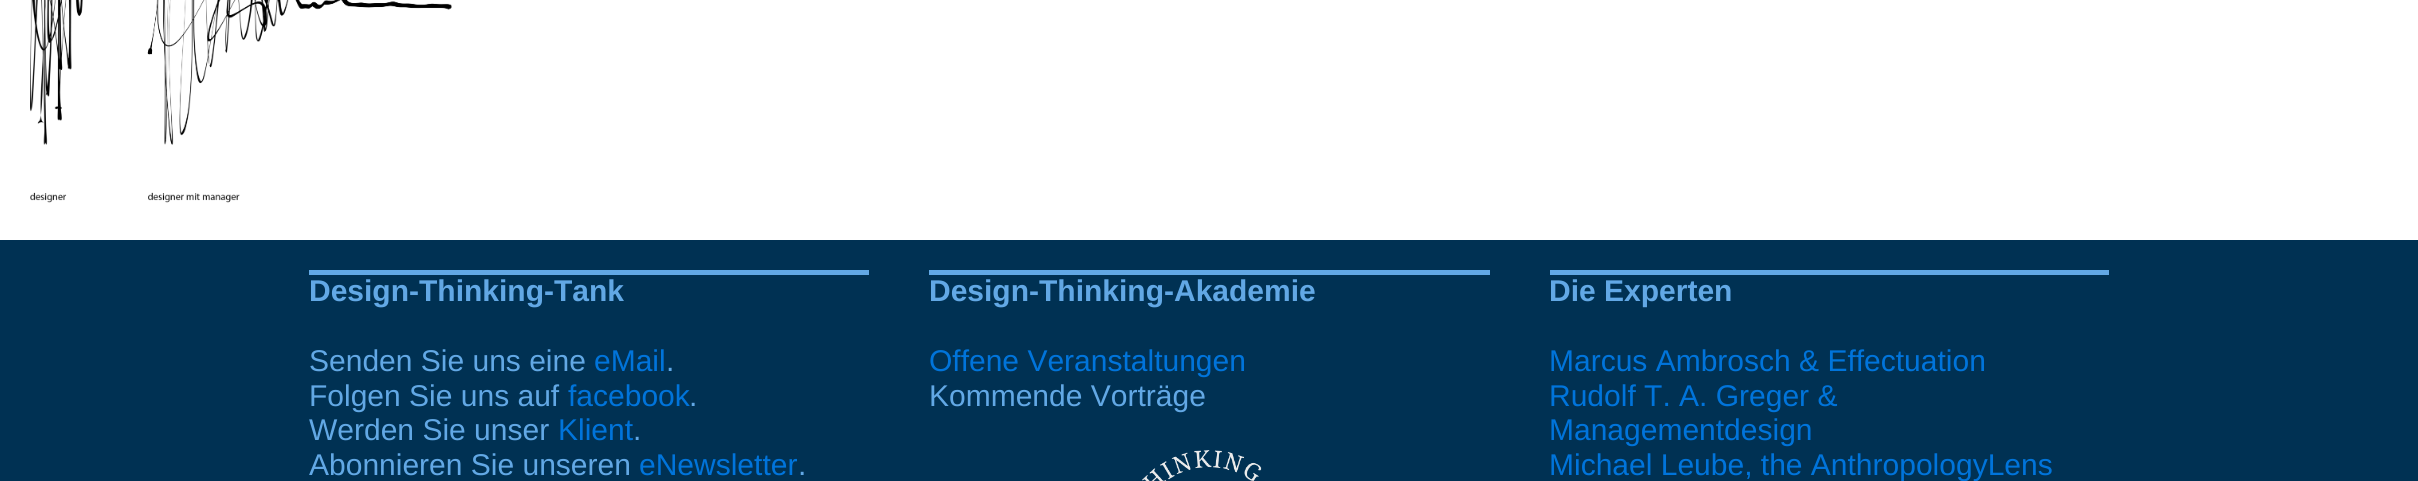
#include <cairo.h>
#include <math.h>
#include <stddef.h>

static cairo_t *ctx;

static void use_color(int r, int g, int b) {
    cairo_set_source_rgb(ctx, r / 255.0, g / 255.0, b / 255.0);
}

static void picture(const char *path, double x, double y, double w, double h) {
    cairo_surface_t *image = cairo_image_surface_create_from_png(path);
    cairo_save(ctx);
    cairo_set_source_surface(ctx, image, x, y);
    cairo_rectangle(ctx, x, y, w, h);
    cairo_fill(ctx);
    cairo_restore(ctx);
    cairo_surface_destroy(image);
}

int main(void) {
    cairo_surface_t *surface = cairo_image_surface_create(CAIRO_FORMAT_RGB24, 2418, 481);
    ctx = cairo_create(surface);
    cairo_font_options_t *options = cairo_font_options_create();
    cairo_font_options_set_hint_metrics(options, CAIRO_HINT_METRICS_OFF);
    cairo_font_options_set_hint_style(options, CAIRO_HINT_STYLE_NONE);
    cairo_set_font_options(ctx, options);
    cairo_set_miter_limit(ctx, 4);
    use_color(255, 255, 255);
    cairo_paint(ctx);
    picture("img1.png", 30, 0, 422, 203);
    use_color(0, 49, 83);
    cairo_rectangle(ctx, 0, 240, 2418, 241);
    cairo_fill(ctx);
    use_color(98, 168, 229);
    cairo_rectangle(ctx, 309, 270, 560, 5);
    cairo_fill(ctx);
    cairo_select_font_face(ctx, "Liberation Sans", CAIRO_FONT_SLANT_NORMAL, CAIRO_FONT_WEIGHT_BOLD);
    cairo_set_font_size(ctx, 30);
    cairo_move_to(ctx, 309, 301);
    cairo_show_text(ctx, "Design-Thinking-Tank");
    cairo_select_font_face(ctx, "Liberation Sans", CAIRO_FONT_SLANT_NORMAL, CAIRO_FONT_WEIGHT_NORMAL);
    cairo_move_to(ctx, 309, 371);
    cairo_show_text(ctx, "Senden Sie uns eine");
    use_color(0, 116, 219);
    cairo_move_to(ctx, 594, 371);
    cairo_show_text(ctx, "eMail");
    use_color(98, 168, 229);
    cairo_move_to(ctx, 666, 371);
    cairo_show_text(ctx, ".");
    cairo_move_to(ctx, 309, 406);
    cairo_show_text(ctx, "Folgen Sie uns auf");
    use_color(0, 116, 219);
    cairo_move_to(ctx, 568, 406);
    cairo_show_text(ctx, "facebook");
    use_color(98, 168, 229);
    cairo_move_to(ctx, 689, 406);
    cairo_show_text(ctx, ".");
    cairo_move_to(ctx, 309, 440);
    cairo_show_text(ctx, "Werden Sie unser");
    use_color(0, 116, 219);
    cairo_move_to(ctx, 558, 440);
    cairo_show_text(ctx, "Klient");
    use_color(98, 168, 229);
    cairo_move_to(ctx, 633, 440);
    cairo_show_text(ctx, ".");
    cairo_move_to(ctx, 309, 475);
    cairo_show_text(ctx, "Abonnieren Sie unseren");
    use_color(0, 116, 219);
    cairo_move_to(ctx, 639, 475);
    cairo_show_text(ctx, "eNewsletter");
    use_color(98, 168, 229);
    cairo_move_to(ctx, 798, 475);
    cairo_show_text(ctx, ".");
    cairo_rectangle(ctx, 929, 270, 561, 5);
    cairo_fill(ctx);
    cairo_select_font_face(ctx, "Liberation Sans", CAIRO_FONT_SLANT_NORMAL, CAIRO_FONT_WEIGHT_BOLD);
    cairo_move_to(ctx, 929, 301);
    cairo_show_text(ctx, "Design-Thinking-Akademie");
    cairo_select_font_face(ctx, "Liberation Sans", CAIRO_FONT_SLANT_NORMAL, CAIRO_FONT_WEIGHT_NORMAL);
    use_color(0, 116, 219);
    cairo_move_to(ctx, 929, 371);
    cairo_show_text(ctx, "Offene Veranstaltungen");
    use_color(98, 168, 229);
    cairo_move_to(ctx, 929, 406);
    cairo_show_text(ctx, "Kommende Vorträge");
    picture("img2.png", 1142, 450, 120, 31);
    cairo_rectangle(ctx, 1550, 270, 559, 5);
    cairo_fill(ctx);
    cairo_select_font_face(ctx, "Liberation Sans", CAIRO_FONT_SLANT_NORMAL, CAIRO_FONT_WEIGHT_BOLD);
    cairo_move_to(ctx, 1549, 301);
    cairo_show_text(ctx, "Die Experten");
    cairo_select_font_face(ctx, "Liberation Sans", CAIRO_FONT_SLANT_NORMAL, CAIRO_FONT_WEIGHT_NORMAL);
    use_color(0, 116, 219);
    cairo_move_to(ctx, 1549, 371);
    cairo_show_text(ctx, "Marcus Ambrosch & Effectuation");
    cairo_move_to(ctx, 1549, 406);
    cairo_show_text(ctx, "Rudolf T. A. Greger &");
    cairo_move_to(ctx, 1549, 440);
    cairo_show_text(ctx, "Managementdesign");
    cairo_move_to(ctx, 1549, 475);
    cairo_show_text(ctx, "Michael Leube, the AnthropologyLens");
    cairo_surface_write_to_png(surface, "result.png");
    cairo_font_options_destroy(options);
    cairo_destroy(ctx);
    cairo_surface_destroy(surface);
    return 0;
}
